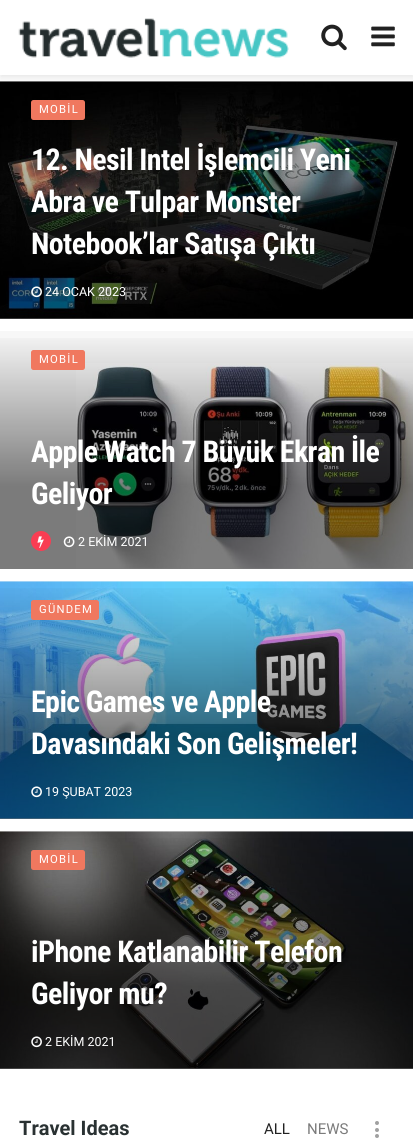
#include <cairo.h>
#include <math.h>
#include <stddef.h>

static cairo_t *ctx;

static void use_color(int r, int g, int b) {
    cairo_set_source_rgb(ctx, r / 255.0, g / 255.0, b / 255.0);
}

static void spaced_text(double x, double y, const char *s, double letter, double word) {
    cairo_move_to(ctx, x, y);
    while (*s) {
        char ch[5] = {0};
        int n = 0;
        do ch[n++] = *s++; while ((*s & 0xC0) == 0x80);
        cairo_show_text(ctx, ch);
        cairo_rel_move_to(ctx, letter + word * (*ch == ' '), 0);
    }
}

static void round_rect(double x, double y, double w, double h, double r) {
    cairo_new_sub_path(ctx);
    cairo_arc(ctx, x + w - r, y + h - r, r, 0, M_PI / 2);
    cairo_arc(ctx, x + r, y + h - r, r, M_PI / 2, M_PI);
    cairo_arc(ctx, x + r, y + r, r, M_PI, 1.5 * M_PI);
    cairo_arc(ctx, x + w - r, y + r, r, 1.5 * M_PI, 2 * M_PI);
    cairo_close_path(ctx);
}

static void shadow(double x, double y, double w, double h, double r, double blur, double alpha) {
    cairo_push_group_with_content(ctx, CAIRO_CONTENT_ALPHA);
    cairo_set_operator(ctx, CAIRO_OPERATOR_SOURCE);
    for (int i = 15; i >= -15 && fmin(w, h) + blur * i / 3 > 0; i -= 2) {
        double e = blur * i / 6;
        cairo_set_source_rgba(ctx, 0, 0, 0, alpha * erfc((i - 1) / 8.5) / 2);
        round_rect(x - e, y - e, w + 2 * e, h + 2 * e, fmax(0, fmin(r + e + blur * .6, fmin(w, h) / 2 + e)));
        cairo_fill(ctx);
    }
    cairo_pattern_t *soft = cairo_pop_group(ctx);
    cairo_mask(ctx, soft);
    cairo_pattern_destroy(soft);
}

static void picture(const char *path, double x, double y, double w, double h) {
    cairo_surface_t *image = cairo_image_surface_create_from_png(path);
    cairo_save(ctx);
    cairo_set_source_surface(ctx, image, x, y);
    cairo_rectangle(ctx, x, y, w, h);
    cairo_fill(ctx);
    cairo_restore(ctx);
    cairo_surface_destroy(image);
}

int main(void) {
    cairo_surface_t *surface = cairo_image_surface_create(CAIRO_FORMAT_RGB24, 413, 1138);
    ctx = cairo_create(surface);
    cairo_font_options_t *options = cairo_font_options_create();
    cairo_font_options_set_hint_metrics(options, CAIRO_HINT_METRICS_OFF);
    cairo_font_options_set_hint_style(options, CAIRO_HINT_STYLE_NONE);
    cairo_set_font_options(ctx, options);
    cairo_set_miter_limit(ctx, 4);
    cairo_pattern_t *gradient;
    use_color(255, 255, 255);
    cairo_paint(ctx);
    use_color(247, 247, 247);
    cairo_rectangle(ctx, 0, 81, 413, 238);
    cairo_fill(ctx);
    picture("img4.png", 0, 81, 413, 238);
    cairo_save(ctx);
    cairo_rectangle(ctx, 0, 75, 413, 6);
    cairo_clip(ctx);
    use_color(0, 0, 0);
    shadow(0, 3, 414, 75, 0, 4, 0.1);
    cairo_restore(ctx);
    picture("img1.png", 18, 18, 271, 40);
    picture("img2.png", 321, 24, 26, 27);
    picture("img3.png", 371, 26, 24, 21);
    gradient = cairo_pattern_create_linear(207, 81, 207, 319);
    cairo_pattern_add_color_stop_rgba(gradient, 0, 0, 0, 0, 0);
    cairo_pattern_add_color_stop_rgba(gradient, 0.65, 0, 0, 0, 0.5);
    cairo_pattern_add_color_stop_rgba(gradient, 1, 0, 0, 0, 0.5);
    cairo_set_source(ctx, gradient);
    cairo_pattern_destroy(gradient);
    cairo_rectangle(ctx, 0, 119, 413, 200);
    cairo_fill(ctx);
    use_color(240, 120, 95);
    round_rect(31, 100, 54, 20, 2.5);
    cairo_fill(ctx);
    cairo_select_font_face(ctx, "Roboto", CAIRO_FONT_SLANT_NORMAL, CAIRO_FONT_WEIGHT_NORMAL);
    cairo_set_font_size(ctx, 11.25);
    use_color(255, 255, 255);
    spaced_text(39, 113, "MOBİL", 1.25, 0);
    cairo_select_font_face(ctx, "Roboto Condensed", CAIRO_FONT_SLANT_NORMAL, CAIRO_FONT_WEIGHT_BOLD);
    cairo_set_font_size(ctx, 30);
    spaced_text(31, 170, "12. Nesil Intel İşlemcili Yeni", -0.6, 0);
    spaced_text(31, 212, "Abra ve Tulpar Monster", -0.6, 0);
    spaced_text(31, 254, "Notebook’lar Satışa Çıktı", -0.6, 0);
    picture("img5.png", 31, 286, 11, 12);
    cairo_select_font_face(ctx, "Roboto", CAIRO_FONT_SLANT_NORMAL, CAIRO_FONT_WEIGHT_NORMAL);
    cairo_set_font_size(ctx, 12.5);
    cairo_move_to(ctx, 45, 296);
    cairo_show_text(ctx, "24 OCAK 2023");
    use_color(247, 247, 247);
    cairo_rectangle(ctx, 0, 331, 413, 238);
    cairo_fill(ctx);
    picture("img6.png", 76, 363, 337, 206);
    gradient = cairo_pattern_create_linear(207, 331, 207, 569);
    cairo_pattern_add_color_stop_rgba(gradient, 0, 0, 0, 0, 0);
    cairo_pattern_add_color_stop_rgba(gradient, 0.65, 0, 0, 0, 0.5);
    cairo_pattern_add_color_stop_rgba(gradient, 1, 0, 0, 0, 0.5);
    cairo_set_source(ctx, gradient);
    cairo_pattern_destroy(gradient);
    cairo_rectangle(ctx, 0, 338, 413, 231);
    cairo_fill(ctx);
    use_color(240, 120, 95);
    round_rect(31, 350, 54, 20, 2.5);
    cairo_fill(ctx);
    cairo_set_font_size(ctx, 11.25);
    use_color(255, 255, 255);
    spaced_text(39, 363, "MOBİL", 1.25, 0);
    cairo_select_font_face(ctx, "Roboto Condensed", CAIRO_FONT_SLANT_NORMAL, CAIRO_FONT_WEIGHT_BOLD);
    cairo_set_font_size(ctx, 30);
    spaced_text(31, 462, "Apple Watch 7 Büyük Ekran İle", -0.6, 0);
    spaced_text(31, 504, "Geliyor", -0.6, 0);
    use_color(249, 61, 83);
    cairo_new_path(ctx);
    cairo_arc(ctx, 41, 541, 10, 0, 2 * M_PI);
    cairo_fill(ctx);
    picture("img7.png", 37, 536, 7, 12);
    picture("img8.png", 63, 536, 12, 12);
    cairo_select_font_face(ctx, "Roboto", CAIRO_FONT_SLANT_NORMAL, CAIRO_FONT_WEIGHT_NORMAL);
    cairo_set_font_size(ctx, 12.5);
    use_color(255, 255, 255);
    cairo_move_to(ctx, 78, 546);
    cairo_show_text(ctx, "2 EKİM 2021");
    use_color(247, 247, 247);
    cairo_rectangle(ctx, 0, 581, 413, 238);
    cairo_fill(ctx);
    picture("img9.png", 0, 581, 413, 238);
    gradient = cairo_pattern_create_linear(207, 581, 207, 819);
    cairo_pattern_add_color_stop_rgba(gradient, 0, 0, 0, 0, 0);
    cairo_pattern_add_color_stop_rgba(gradient, 0.65, 0, 0, 0, 0.5);
    cairo_pattern_add_color_stop_rgba(gradient, 1, 0, 0, 0, 0.5);
    cairo_set_source(ctx, gradient);
    cairo_pattern_destroy(gradient);
    cairo_rectangle(ctx, 0, 588, 413, 231);
    cairo_fill(ctx);
    use_color(240, 120, 95);
    round_rect(31, 600, 68, 20, 2.5);
    cairo_fill(ctx);
    cairo_set_font_size(ctx, 11.25);
    use_color(255, 255, 255);
    spaced_text(39, 613, "GÜNDEM", 1.25, 0);
    cairo_select_font_face(ctx, "Roboto Condensed", CAIRO_FONT_SLANT_NORMAL, CAIRO_FONT_WEIGHT_BOLD);
    cairo_set_font_size(ctx, 30);
    spaced_text(31, 712, "Epic Games ve Apple", -0.6, 0);
    spaced_text(31, 754, "Davasındaki Son Gelişmeler!", -0.6, 0);
    picture("img10.png", 31, 786, 11, 12);
    cairo_select_font_face(ctx, "Roboto", CAIRO_FONT_SLANT_NORMAL, CAIRO_FONT_WEIGHT_NORMAL);
    cairo_set_font_size(ctx, 12.5);
    cairo_move_to(ctx, 45, 796);
    cairo_show_text(ctx, "19 ŞUBAT 2023");
    use_color(247, 247, 247);
    cairo_rectangle(ctx, 0, 831, 413, 238);
    cairo_fill(ctx);
    picture("img11.png", 0, 831, 413, 238);
    gradient = cairo_pattern_create_linear(207, 831, 207, 1069);
    cairo_pattern_add_color_stop_rgba(gradient, 0, 0, 0, 0, 0);
    cairo_pattern_add_color_stop_rgba(gradient, 0.65, 0, 0, 0, 0.5);
    cairo_pattern_add_color_stop_rgba(gradient, 1, 0, 0, 0, 0.5);
    cairo_set_source(ctx, gradient);
    cairo_pattern_destroy(gradient);
    cairo_rectangle(ctx, 0, 838, 413, 231);
    cairo_fill(ctx);
    use_color(240, 120, 95);
    round_rect(31, 850, 54, 20, 2.5);
    cairo_fill(ctx);
    cairo_set_font_size(ctx, 11.25);
    use_color(255, 255, 255);
    spaced_text(39, 863, "MOBİL", 1.25, 0);
    cairo_select_font_face(ctx, "Roboto Condensed", CAIRO_FONT_SLANT_NORMAL, CAIRO_FONT_WEIGHT_BOLD);
    cairo_set_font_size(ctx, 30);
    spaced_text(31, 962, "iPhone Katlanabilir Telefon", -0.6, 0);
    spaced_text(31, 1004, "Geliyor mu?", -0.6, 0);
    picture("img12.png", 31, 1036, 11, 12);
    cairo_select_font_face(ctx, "Roboto", CAIRO_FONT_SLANT_NORMAL, CAIRO_FONT_WEIGHT_NORMAL);
    cairo_set_font_size(ctx, 12.5);
    cairo_move_to(ctx, 45, 1046);
    cairo_show_text(ctx, "2 EKİM 2021");
    cairo_select_font_face(ctx, "Roboto", CAIRO_FONT_SLANT_NORMAL, CAIRO_FONT_WEIGHT_BOLD);
    cairo_set_font_size(ctx, 20);
    use_color(41, 49, 50);
    cairo_move_to(ctx, 19, 1135);
    cairo_show_text(ctx, "Travel Ideas");
    cairo_select_font_face(ctx, "Roboto", CAIRO_FONT_SLANT_NORMAL, CAIRO_FONT_WEIGHT_NORMAL);
    cairo_set_font_size(ctx, 15);
    use_color(33, 33, 33);
    cairo_move_to(ctx, 264, 1134);
    cairo_show_text(ctx, "ALL");
    use_color(123, 123, 123);
    cairo_move_to(ctx, 307, 1134);
    cairo_show_text(ctx, "NEWS");
    use_color(160, 160, 160);
    cairo_new_path(ctx);
    cairo_arc(ctx, 377, 1123, 2, 0, 2 * M_PI);
    cairo_fill(ctx);
    cairo_arc(ctx, 377, 1130, 2, 0, 2 * M_PI);
    cairo_fill(ctx);
    cairo_arc(ctx, 377, 1136, 2, 0, 2 * M_PI);
    cairo_fill(ctx);
    cairo_surface_write_to_png(surface, "result.png");
    cairo_font_options_destroy(options);
    cairo_destroy(ctx);
    cairo_surface_destroy(surface);
    return 0;
}
